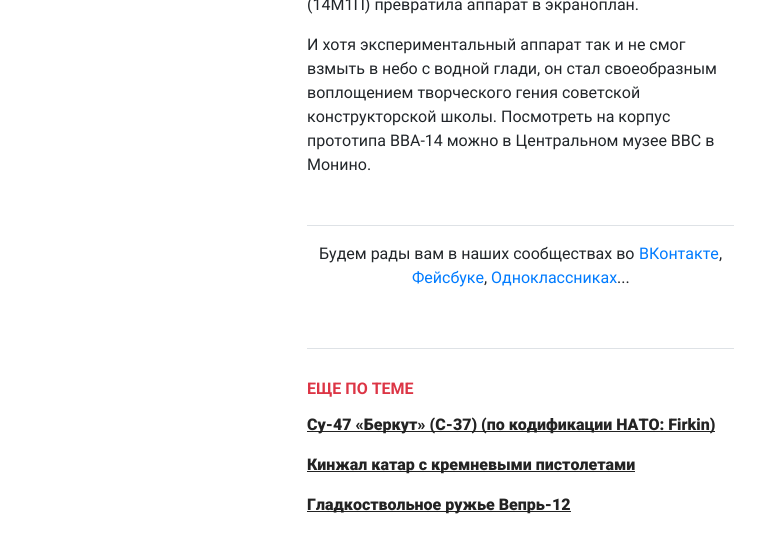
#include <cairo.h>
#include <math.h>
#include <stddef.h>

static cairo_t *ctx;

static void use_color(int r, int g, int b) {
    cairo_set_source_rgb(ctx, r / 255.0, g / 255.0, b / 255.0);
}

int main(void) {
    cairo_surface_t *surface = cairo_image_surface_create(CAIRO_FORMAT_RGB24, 781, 543);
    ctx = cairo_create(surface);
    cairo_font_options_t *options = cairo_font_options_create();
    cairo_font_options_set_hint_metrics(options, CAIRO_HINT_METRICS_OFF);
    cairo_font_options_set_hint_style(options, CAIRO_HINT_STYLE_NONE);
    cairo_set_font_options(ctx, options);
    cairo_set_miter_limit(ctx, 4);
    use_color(255, 255, 255);
    cairo_paint(ctx);
    cairo_select_font_face(ctx, "Roboto", CAIRO_FONT_SLANT_NORMAL, CAIRO_FONT_WEIGHT_NORMAL);
    cairo_set_font_size(ctx, 16);
    use_color(33, 37, 41);
    cairo_move_to(ctx, 307, 10);
    cairo_show_text(ctx, "(14М1П) превратила аппарат в экраноплан.");
    cairo_move_to(ctx, 307, 50);
    cairo_show_text(ctx, "И хотя экспериментальный аппарат так и не смог");
    cairo_move_to(ctx, 307, 74);
    cairo_show_text(ctx, "взмыть в небо с водной глади, он стал своеобразным");
    cairo_move_to(ctx, 307, 98);
    cairo_show_text(ctx, "воплощением творческого гения советской");
    cairo_move_to(ctx, 307, 122);
    cairo_show_text(ctx, "конструкторской школы. Посмотреть на корпус");
    cairo_move_to(ctx, 307, 146);
    cairo_show_text(ctx, "прототипа ВВА-14 можно в Центральном музее ВВС в");
    cairo_move_to(ctx, 307, 170);
    cairo_show_text(ctx, "Монино.");
    use_color(222, 226, 230);
    cairo_rectangle(ctx, 307, 225, 427, 1);
    cairo_fill(ctx);
    cairo_rectangle(ctx, 307, 348, 427, 1);
    cairo_fill(ctx);
    use_color(33, 37, 41);
    cairo_move_to(ctx, 319, 259);
    cairo_show_text(ctx, "Будем рады вам в наших сообществах во");
    use_color(0, 123, 255);
    cairo_move_to(ctx, 639, 259);
    cairo_show_text(ctx, "ВКонтакте");
    use_color(33, 37, 41);
    cairo_move_to(ctx, 719, 259);
    cairo_show_text(ctx, ",");
    use_color(0, 123, 255);
    cairo_move_to(ctx, 412, 283);
    cairo_show_text(ctx, "Фейсбуке");
    use_color(33, 37, 41);
    cairo_move_to(ctx, 484, 283);
    cairo_show_text(ctx, ",");
    use_color(0, 123, 255);
    cairo_move_to(ctx, 491, 283);
    cairo_show_text(ctx, "Одноклассниках");
    use_color(33, 37, 41);
    cairo_move_to(ctx, 617, 283);
    cairo_show_text(ctx, "...");
    cairo_select_font_face(ctx, "Roboto", CAIRO_FONT_SLANT_NORMAL, CAIRO_FONT_WEIGHT_BOLD);
    use_color(220, 53, 69);
    cairo_move_to(ctx, 307, 394);
    cairo_show_text(ctx, "ЕЩЕ ПО ТЕМЕ");
    use_color(35, 35, 35);
    cairo_rectangle(ctx, 307, 431, 408, 1);
    cairo_fill(ctx);
    cairo_select_font_face(ctx, "Roboto Black", CAIRO_FONT_SLANT_NORMAL, CAIRO_FONT_WEIGHT_NORMAL);
    cairo_move_to(ctx, 307, 430);
    cairo_show_text(ctx, "Су-47 «Беркут» (C-37) (по кодификации НАТО: Firkin)");
    cairo_rectangle(ctx, 307, 471, 328, 1);
    cairo_fill(ctx);
    cairo_move_to(ctx, 307, 470);
    cairo_show_text(ctx, "Кинжал катар с кремневыми пистолетами");
    cairo_rectangle(ctx, 307, 511, 264, 1);
    cairo_fill(ctx);
    cairo_move_to(ctx, 307, 510);
    cairo_show_text(ctx, "Гладкоствольное ружье Вепрь-12");
    cairo_surface_write_to_png(surface, "result.png");
    cairo_font_options_destroy(options);
    cairo_destroy(ctx);
    cairo_surface_destroy(surface);
    return 0;
}
